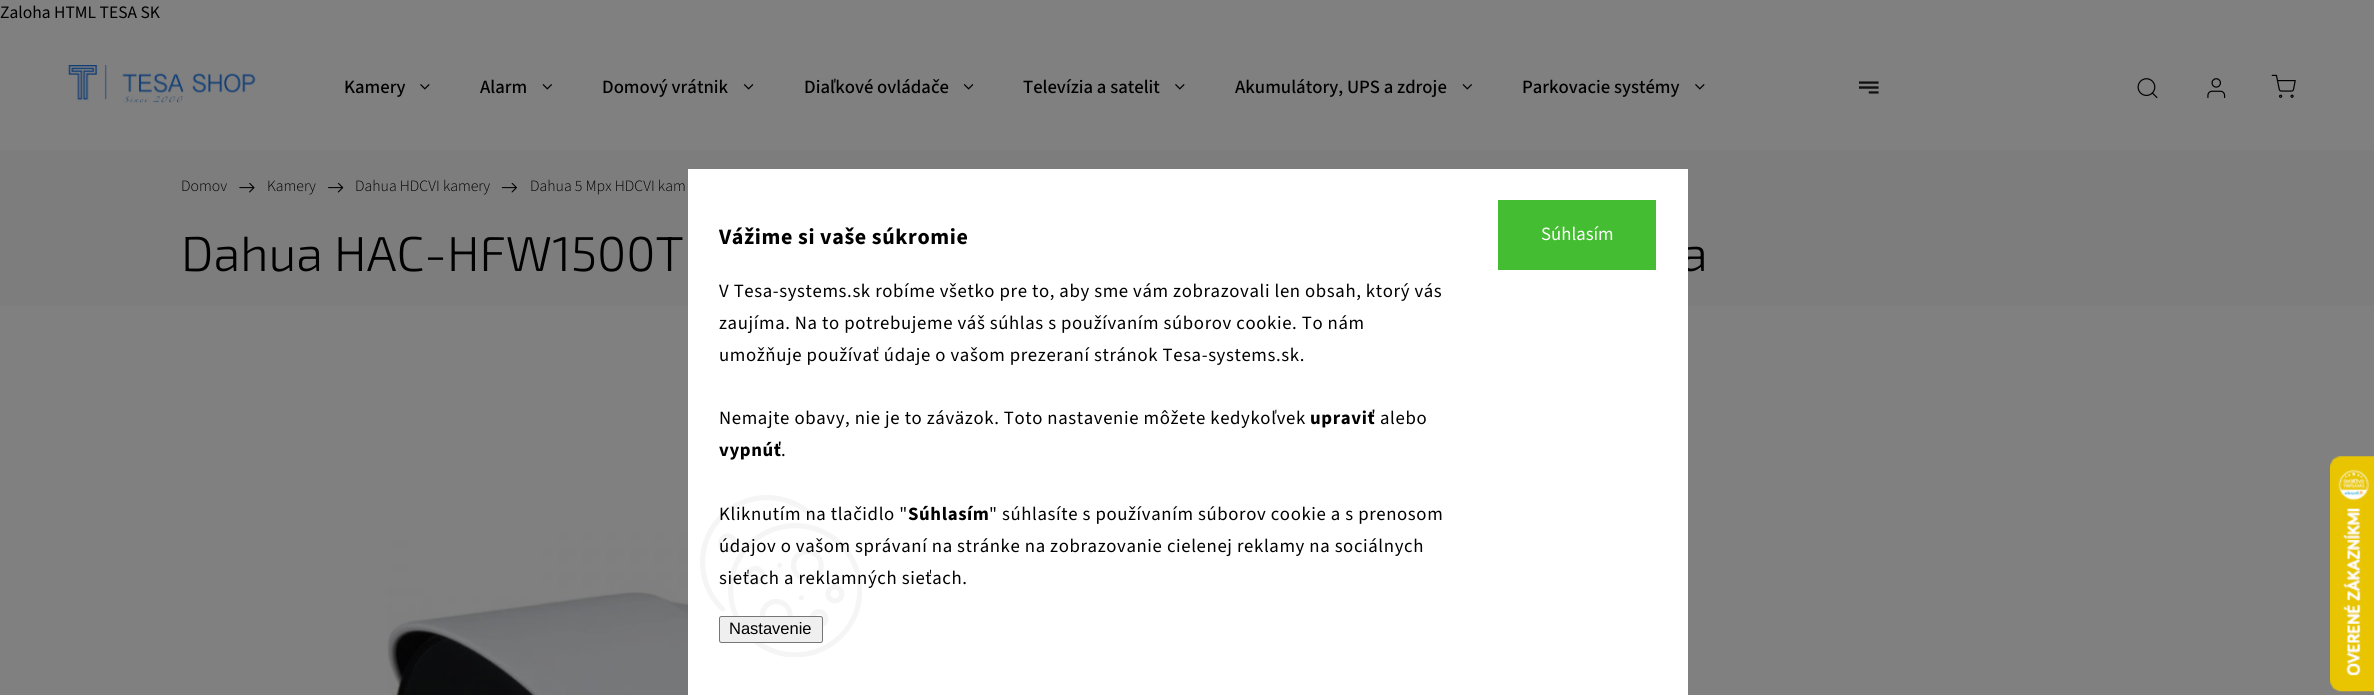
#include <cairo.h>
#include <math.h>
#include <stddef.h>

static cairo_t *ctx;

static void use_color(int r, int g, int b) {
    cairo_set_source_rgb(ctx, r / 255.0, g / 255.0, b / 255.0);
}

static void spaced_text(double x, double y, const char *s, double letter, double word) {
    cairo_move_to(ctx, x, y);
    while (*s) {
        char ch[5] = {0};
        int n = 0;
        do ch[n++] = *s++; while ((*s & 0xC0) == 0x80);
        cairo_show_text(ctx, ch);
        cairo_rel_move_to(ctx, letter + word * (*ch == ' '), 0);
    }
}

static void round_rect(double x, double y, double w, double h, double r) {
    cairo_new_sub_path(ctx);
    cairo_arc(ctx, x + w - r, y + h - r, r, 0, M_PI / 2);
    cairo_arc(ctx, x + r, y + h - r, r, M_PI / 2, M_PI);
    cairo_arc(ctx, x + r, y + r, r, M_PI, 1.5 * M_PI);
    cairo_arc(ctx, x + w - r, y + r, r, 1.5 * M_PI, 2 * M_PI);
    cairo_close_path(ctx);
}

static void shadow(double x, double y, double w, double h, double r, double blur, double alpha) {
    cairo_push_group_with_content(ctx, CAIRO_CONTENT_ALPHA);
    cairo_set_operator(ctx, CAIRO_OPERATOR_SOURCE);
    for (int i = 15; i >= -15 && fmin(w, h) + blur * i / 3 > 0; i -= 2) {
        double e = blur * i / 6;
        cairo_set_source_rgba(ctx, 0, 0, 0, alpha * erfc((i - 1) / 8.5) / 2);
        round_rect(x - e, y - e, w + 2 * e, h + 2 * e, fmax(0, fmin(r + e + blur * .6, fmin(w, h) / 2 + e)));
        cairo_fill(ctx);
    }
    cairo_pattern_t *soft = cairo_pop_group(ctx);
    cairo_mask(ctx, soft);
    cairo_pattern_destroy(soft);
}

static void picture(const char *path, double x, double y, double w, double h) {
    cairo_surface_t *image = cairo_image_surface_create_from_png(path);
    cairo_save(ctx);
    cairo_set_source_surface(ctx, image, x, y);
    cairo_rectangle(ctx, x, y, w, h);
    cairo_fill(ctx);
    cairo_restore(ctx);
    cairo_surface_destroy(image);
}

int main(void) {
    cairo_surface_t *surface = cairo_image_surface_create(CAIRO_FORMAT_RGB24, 2374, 695);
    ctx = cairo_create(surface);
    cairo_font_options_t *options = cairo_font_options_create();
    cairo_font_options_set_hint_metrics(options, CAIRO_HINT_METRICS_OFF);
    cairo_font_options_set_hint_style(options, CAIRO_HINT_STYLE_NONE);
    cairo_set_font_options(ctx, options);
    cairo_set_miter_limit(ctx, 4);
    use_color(255, 255, 255);
    cairo_paint(ctx);
    cairo_select_font_face(ctx, "Source Sans 3", CAIRO_FONT_SLANT_NORMAL, CAIRO_FONT_WEIGHT_NORMAL);
    cairo_set_font_size(ctx, 17.5);
    use_color(0, 0, 0);
    cairo_move_to(ctx, 0, 18);
    cairo_show_text(ctx, "Zaloha HTML TESA SK");
    picture("img1.png", 68, 65, 188, 38);
    picture("img2.png", 2137, 78, 21, 21);
    picture("img3.png", 2207, 78, 19, 21);
    picture("img4.png", 2271, 74, 25, 24);
    cairo_select_font_face(ctx, "Source Sans 3 Medium", CAIRO_FONT_SLANT_NORMAL, CAIRO_FONT_WEIGHT_NORMAL);
    cairo_set_font_size(ctx, 18.75);
    cairo_move_to(ctx, 344, 93);
    cairo_show_text(ctx, "Kamery");
    picture("img5.png", 420, 84, 10, 6);
    cairo_move_to(ctx, 480, 93);
    cairo_show_text(ctx, "Alarm");
    picture("img6.png", 542, 84, 11, 6);
    cairo_move_to(ctx, 602, 93);
    cairo_show_text(ctx, "Domový vrátnik");
    picture("img7.png", 743, 84, 11, 6);
    cairo_move_to(ctx, 804, 93);
    cairo_show_text(ctx, "Diaľkové ovládače");
    picture("img7.png", 963, 84, 11, 6);
    cairo_move_to(ctx, 1023, 93);
    cairo_show_text(ctx, "Televízia a satelit");
    picture("img5.png", 1175, 84, 10, 6);
    cairo_move_to(ctx, 1235, 93);
    cairo_show_text(ctx, "Akumulátory, UPS a zdroje");
    picture("img6.png", 1462, 84, 11, 6);
    cairo_move_to(ctx, 1522, 93);
    cairo_show_text(ctx, "Parkovacie systémy");
    picture("img5.png", 1695, 84, 10, 6);
    picture("img8.png", 1859, 81, 20, 13);
    use_color(250, 250, 250);
    cairo_rectangle(ctx, 0, 150, 2374, 156);
    cairo_fill(ctx);
    cairo_select_font_face(ctx, "Source Sans 3 Light", CAIRO_FONT_SLANT_NORMAL, CAIRO_FONT_WEIGHT_NORMAL);
    cairo_set_font_size(ctx, 15.75);
    use_color(0, 0, 0);
    cairo_move_to(ctx, 181, 191);
    cairo_show_text(ctx, "Domov");
    picture("img9.png", 239, 183, 16, 10);
    cairo_move_to(ctx, 267, 191);
    cairo_show_text(ctx, "Kamery");
    picture("img10.png", 328, 183, 16, 10);
    cairo_move_to(ctx, 355, 191);
    cairo_show_text(ctx, "Dahua HDCVI kamery");
    picture("img11.png", 501, 183, 16, 10);
    cairo_move_to(ctx, 530, 191);
    cairo_show_text(ctx, "Dahua 5 Mpx HDCVI kam");
    cairo_select_font_face(ctx, "Exo 2 Light", CAIRO_FONT_SLANT_NORMAL, CAIRO_FONT_WEIGHT_NORMAL);
    cairo_set_font_size(ctx, 49);
    cairo_move_to(ctx, 181, 271);
    cairo_show_text(ctx, "Dahua HAC-HFW1500T");
    cairo_move_to(ctx, 1681, 271);
    cairo_show_text(ctx, "a");
    picture("img12.png", 387, 533, 301, 162);
    use_color(0, 0, 0);
    shadow(-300, -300, 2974, 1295, 0, 100, 0.5);
    use_color(255, 255, 255);
    cairo_rectangle(ctx, 688, 169, 1000, 526);
    cairo_fill(ctx);
    cairo_select_font_face(ctx, "Source Sans 3", CAIRO_FONT_SLANT_NORMAL, CAIRO_FONT_WEIGHT_BOLD);
    cairo_set_font_size(ctx, 22);
    use_color(0, 0, 0);
    spaced_text(719, 244, "Vážime si vaše súkromie", 0.62, 0);
    cairo_select_font_face(ctx, "Source Sans 3", CAIRO_FONT_SLANT_NORMAL, CAIRO_FONT_WEIGHT_NORMAL);
    cairo_set_font_size(ctx, 18.75);
    spaced_text(719, 297, "V Tesa-systems.sk robíme všetko pre to, aby sme vám zobrazovali len obsah, ktorý vás", 0.62, 0);
    spaced_text(719, 329, "zaujíma. Na to potrebujeme váš súhlas s používaním súborov cookie. To nám", 0.62, 0);
    spaced_text(719, 361, "umožňuje používať údaje o vašom prezeraní stránok Tesa-systems.sk.", 0.62, 0);
    spaced_text(719, 424, "Nemajte obavy, nie je to záväzok. Toto nastavenie môžete kedykoľvek", 0.62, 0);
    cairo_select_font_face(ctx, "Source Sans 3", CAIRO_FONT_SLANT_NORMAL, CAIRO_FONT_WEIGHT_BOLD);
    spaced_text(1310, 424, "upraviť", 0.62, 0);
    cairo_select_font_face(ctx, "Source Sans 3", CAIRO_FONT_SLANT_NORMAL, CAIRO_FONT_WEIGHT_NORMAL);
    spaced_text(1380, 424, "alebo", 0.62, 0);
    cairo_select_font_face(ctx, "Source Sans 3", CAIRO_FONT_SLANT_NORMAL, CAIRO_FONT_WEIGHT_BOLD);
    spaced_text(719, 456, "vypnúť", 0.62, 0);
    cairo_select_font_face(ctx, "Source Sans 3", CAIRO_FONT_SLANT_NORMAL, CAIRO_FONT_WEIGHT_NORMAL);
    spaced_text(781, 456, ".", 0.62, 0);
    picture("img13.png", 700, 495, 162, 162);
    spaced_text(719, 520, "Kliknutím na tlačidlo \"", 0.62, 0);
    cairo_select_font_face(ctx, "Source Sans 3", CAIRO_FONT_SLANT_NORMAL, CAIRO_FONT_WEIGHT_BOLD);
    spaced_text(908, 520, "Súhlasím", 0.62, 0);
    cairo_select_font_face(ctx, "Source Sans 3", CAIRO_FONT_SLANT_NORMAL, CAIRO_FONT_WEIGHT_NORMAL);
    spaced_text(989, 520, "\" súhlasíte s používaním súborov cookie a s prenosom", 0.62, 0);
    spaced_text(719, 552, "údajov o vašom správaní na stránke na zobrazovanie cielenej reklamy na sociálnych", 0.62, 0);
    spaced_text(719, 584, "sieťach a reklamných sieťach.", 0.62, 0);
    use_color(239, 239, 239);
    round_rect(719.5, 616.5, 103, 26, 2);
    cairo_fill_preserve(ctx);
    use_color(118, 118, 118);
    cairo_set_line_width(ctx, 1);
    cairo_stroke(ctx);
    cairo_select_font_face(ctx, "Liberation Sans", CAIRO_FONT_SLANT_NORMAL, CAIRO_FONT_WEIGHT_NORMAL);
    cairo_set_font_size(ctx, 16.5);
    use_color(0, 0, 0);
    cairo_move_to(ctx, 729, 634);
    cairo_show_text(ctx, "Nastavenie");
    use_color(68, 189, 50);
    cairo_rectangle(ctx, 1498, 200, 158, 70);
    cairo_fill(ctx);
    cairo_select_font_face(ctx, "Source Sans 3", CAIRO_FONT_SLANT_NORMAL, CAIRO_FONT_WEIGHT_NORMAL);
    cairo_set_font_size(ctx, 18.75);
    use_color(255, 255, 255);
    cairo_move_to(ctx, 1541, 240);
    cairo_show_text(ctx, "Súhlasím");
    picture("img14.png", 2330, 456, 44, 236);
    cairo_surface_write_to_png(surface, "result.png");
    cairo_font_options_destroy(options);
    cairo_destroy(ctx);
    cairo_surface_destroy(surface);
    return 0;
}
